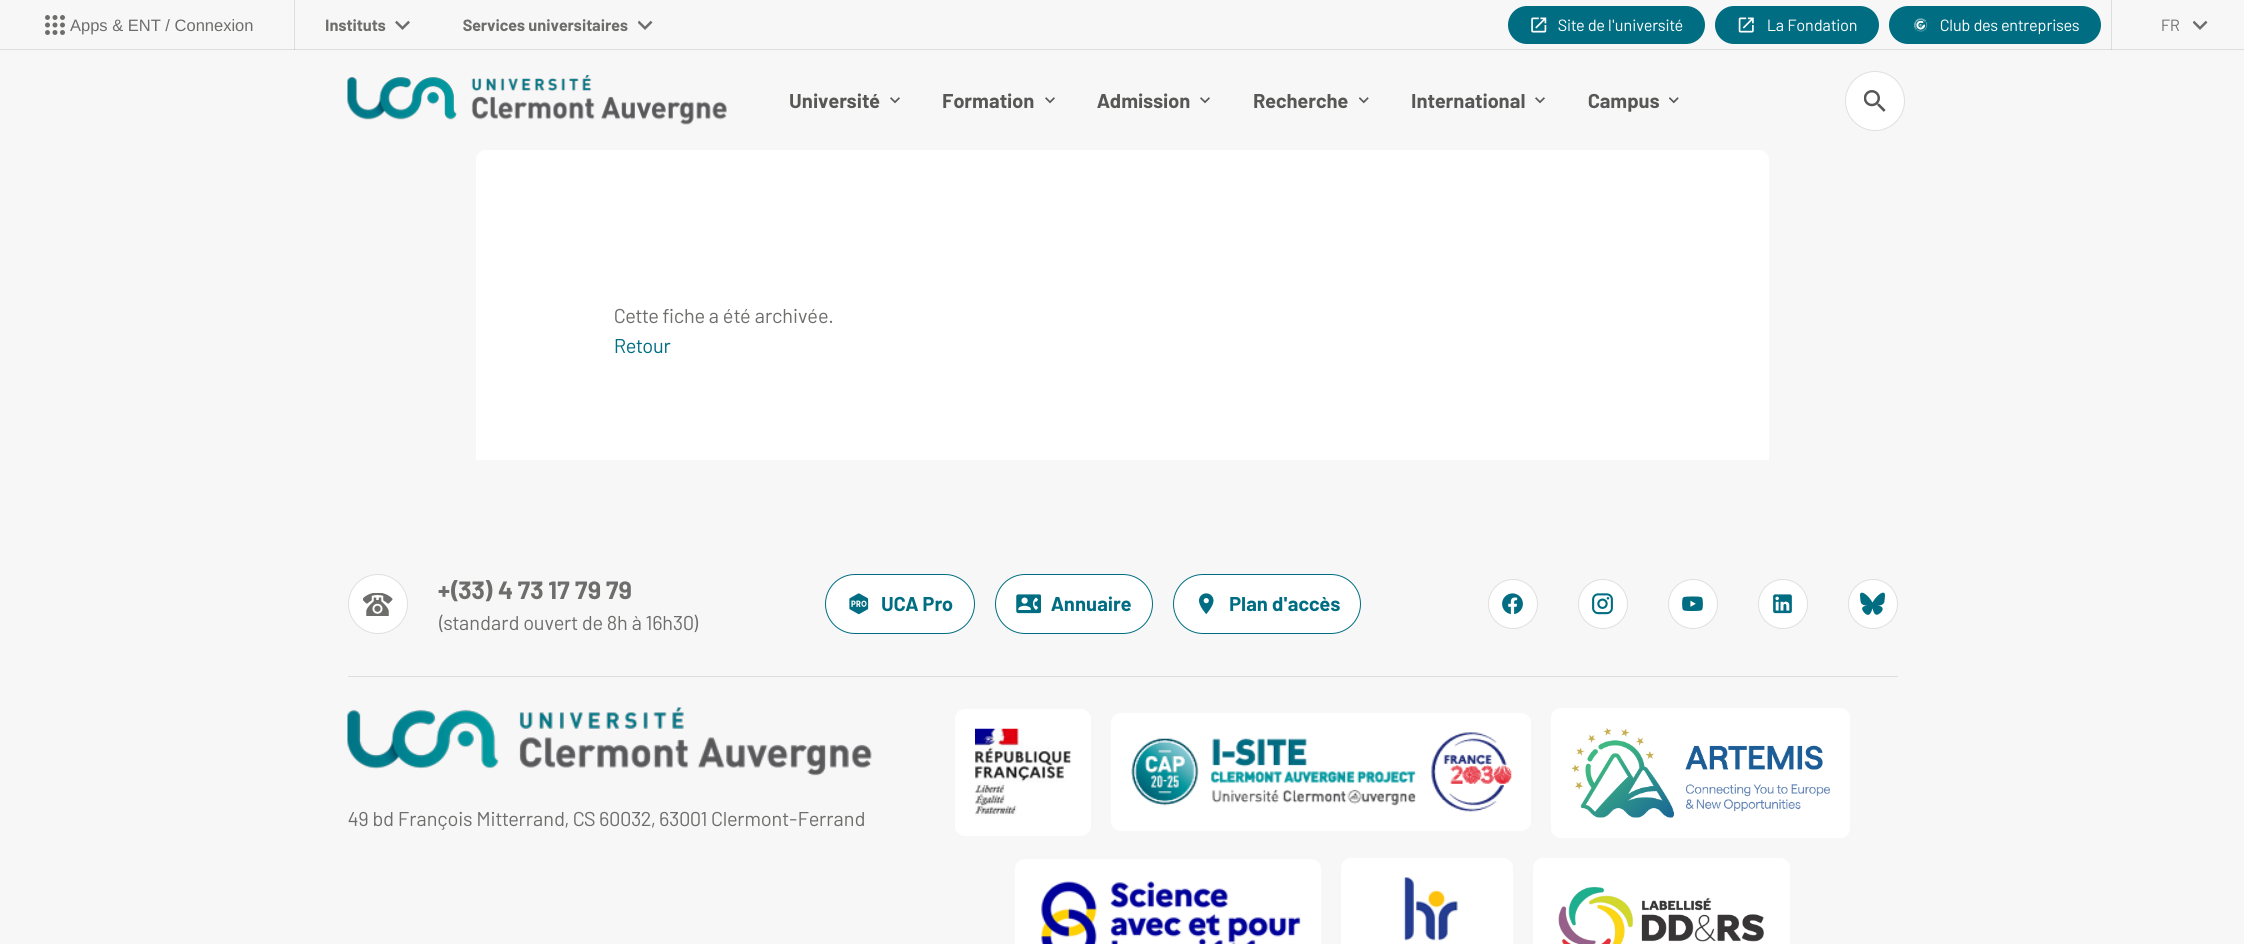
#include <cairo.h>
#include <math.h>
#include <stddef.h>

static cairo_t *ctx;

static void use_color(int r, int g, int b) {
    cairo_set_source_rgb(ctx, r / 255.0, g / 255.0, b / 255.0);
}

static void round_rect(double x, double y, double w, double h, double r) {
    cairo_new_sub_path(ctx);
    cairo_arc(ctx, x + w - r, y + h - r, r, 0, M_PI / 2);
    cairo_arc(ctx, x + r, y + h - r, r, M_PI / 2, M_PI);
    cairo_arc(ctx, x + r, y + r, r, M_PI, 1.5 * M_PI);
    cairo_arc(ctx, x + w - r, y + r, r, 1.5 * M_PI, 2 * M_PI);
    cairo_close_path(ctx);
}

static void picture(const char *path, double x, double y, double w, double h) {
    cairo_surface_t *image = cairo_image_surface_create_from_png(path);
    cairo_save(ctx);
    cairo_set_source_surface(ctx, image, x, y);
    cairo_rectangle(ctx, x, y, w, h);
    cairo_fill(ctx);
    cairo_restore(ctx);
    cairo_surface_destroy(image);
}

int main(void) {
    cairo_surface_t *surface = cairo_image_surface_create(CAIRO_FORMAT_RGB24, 2244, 944);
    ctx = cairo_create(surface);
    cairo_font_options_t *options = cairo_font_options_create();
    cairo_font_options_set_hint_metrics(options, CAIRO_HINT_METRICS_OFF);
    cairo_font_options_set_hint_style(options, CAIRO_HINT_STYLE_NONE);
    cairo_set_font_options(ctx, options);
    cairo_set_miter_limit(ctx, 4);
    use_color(247, 247, 247);
    cairo_paint(ctx);
    use_color(222, 222, 222);
    cairo_rectangle(ctx, 2111, 0, 1, 50);
    cairo_fill(ctx);
    cairo_rectangle(ctx, 294, 0, 1, 50);
    cairo_fill(ctx);
    cairo_rectangle(ctx, 0, 49, 2244, 1);
    cairo_fill(ctx);
    use_color(200, 200, 200);
    cairo_rectangle(ctx, 2111, 49, 1, 1);
    cairo_fill(ctx);
    cairo_rectangle(ctx, 294, 49, 1, 1);
    cairo_fill(ctx);
    picture("img1.png", 45, 15, 20, 20);
    cairo_select_font_face(ctx, "Liberation Sans", CAIRO_FONT_SLANT_NORMAL, CAIRO_FONT_WEIGHT_NORMAL);
    cairo_set_font_size(ctx, 16.5);
    use_color(109, 109, 108);
    cairo_move_to(ctx, 70, 31);
    cairo_show_text(ctx, "Apps & ENT / Connexion");
    cairo_select_font_face(ctx, "Barlow", CAIRO_FONT_SLANT_NORMAL, CAIRO_FONT_WEIGHT_BOLD);
    cairo_set_font_size(ctx, 16.25);
    cairo_move_to(ctx, 325, 31);
    cairo_show_text(ctx, "Instituts");
    picture("img2.png", 395, 20, 15, 10);
    cairo_move_to(ctx, 463, 31);
    cairo_show_text(ctx, "Services universitaires");
    picture("img3.png", 638, 20, 15, 10);
    use_color(0, 109, 130);
    round_rect(1508, 6, 197, 38, 19);
    cairo_fill(ctx);
    picture("img4.png", 1531, 17, 16, 16);
    cairo_select_font_face(ctx, "Barlow", CAIRO_FONT_SLANT_NORMAL, CAIRO_FONT_WEIGHT_NORMAL);
    use_color(255, 255, 255);
    cairo_move_to(ctx, 1558, 31);
    cairo_show_text(ctx, "Site de l'université");
    use_color(0, 109, 130);
    round_rect(1715, 6, 164, 38, 19);
    cairo_fill(ctx);
    picture("img5.png", 1738, 17, 16, 16);
    use_color(255, 255, 255);
    cairo_move_to(ctx, 1767, 31);
    cairo_show_text(ctx, "La Fondation");
    use_color(0, 109, 130);
    round_rect(1889, 6, 212, 38, 19);
    cairo_fill(ctx);
    picture("img6.png", 1914, 18, 14, 14);
    use_color(255, 255, 255);
    cairo_move_to(ctx, 1940, 31);
    cairo_show_text(ctx, "Club des entreprises");
    use_color(109, 109, 108);
    cairo_move_to(ctx, 2161, 31);
    cairo_show_text(ctx, "FR");
    picture("img3.png", 2193, 20, 15, 10);
    picture("img7.png", 347, 75, 380, 50);
    cairo_select_font_face(ctx, "Barlow", CAIRO_FONT_SLANT_NORMAL, CAIRO_FONT_WEIGHT_BOLD);
    cairo_set_font_size(ctx, 20);
    use_color(87, 87, 86);
    cairo_move_to(ctx, 789, 108);
    cairo_show_text(ctx, "Université");
    picture("img8.png", 890, 97, 10, 7);
    cairo_move_to(ctx, 942, 108);
    cairo_show_text(ctx, "Formation");
    picture("img8.png", 1045, 97, 10, 7);
    cairo_move_to(ctx, 1097, 108);
    cairo_show_text(ctx, "Admission");
    picture("img8.png", 1200, 97, 10, 7);
    cairo_move_to(ctx, 1253, 108);
    cairo_show_text(ctx, "Recherche");
    picture("img9.png", 1359, 97, 10, 7);
    cairo_move_to(ctx, 1411, 108);
    cairo_show_text(ctx, "International");
    picture("img8.png", 1535, 97, 10, 7);
    cairo_move_to(ctx, 1588, 108);
    cairo_show_text(ctx, "Campus");
    picture("img9.png", 1669, 97, 10, 7);
    use_color(255, 255, 255);
    cairo_arc(ctx, 1875, 101, 29.5, 0, 2 * M_PI);
    cairo_fill_preserve(ctx);
    use_color(223, 223, 223);
    cairo_set_line_width(ctx, 1);
    cairo_stroke(ctx);
    picture("img10.png", 1864, 90, 22, 22);
    use_color(255, 255, 255);
    cairo_new_path(ctx);
    cairo_move_to(ctx, 486, 150);
    cairo_line_to(ctx, 1759, 150);
    cairo_curve_to(ctx, 1764.5, 150, 1769, 154.5, 1769, 160);
    cairo_line_to(ctx, 1769, 460);
    cairo_line_to(ctx, 476, 460);
    cairo_line_to(ctx, 476, 160);
    cairo_curve_to(ctx, 476, 154.5, 480.5, 150, 486, 150);
    cairo_close_path(ctx);
    cairo_fill(ctx);
    cairo_select_font_face(ctx, "Barlow", CAIRO_FONT_SLANT_NORMAL, CAIRO_FONT_WEIGHT_NORMAL);
    use_color(109, 109, 108);
    cairo_move_to(ctx, 614, 323);
    cairo_show_text(ctx, "Cette fiche a été archivée.");
    use_color(0, 109, 130);
    cairo_move_to(ctx, 614, 353);
    cairo_show_text(ctx, "Retour");
    use_color(222, 222, 222);
    cairo_rectangle(ctx, 348, 676, 1550, 1);
    cairo_fill(ctx);
    use_color(255, 255, 255);
    cairo_arc(ctx, 378, 604, 29.5, 0, 2 * M_PI);
    cairo_fill_preserve(ctx);
    use_color(223, 223, 223);
    cairo_stroke(ctx);
    picture("img11.png", 363, 593, 30, 23);
    cairo_select_font_face(ctx, "Barlow", CAIRO_FONT_SLANT_NORMAL, CAIRO_FONT_WEIGHT_BOLD);
    cairo_set_font_size(ctx, 25);
    use_color(109, 109, 108);
    cairo_move_to(ctx, 438, 599);
    cairo_show_text(ctx, "+(33) 4 73 17 79 79");
    cairo_select_font_face(ctx, "Barlow", CAIRO_FONT_SLANT_NORMAL, CAIRO_FONT_WEIGHT_NORMAL);
    cairo_set_font_size(ctx, 20);
    cairo_move_to(ctx, 438, 630);
    cairo_show_text(ctx, "(standard ouvert de 8h à 16h30)");
    use_color(255, 255, 255);
    round_rect(825.5, 574.5, 149, 59, 29.5);
    cairo_fill_preserve(ctx);
    use_color(0, 109, 130);
    cairo_stroke(ctx);
    picture("img12.png", 849, 593, 20, 22);
    cairo_select_font_face(ctx, "Barlow", CAIRO_FONT_SLANT_NORMAL, CAIRO_FONT_WEIGHT_BOLD);
    cairo_move_to(ctx, 881, 611);
    cairo_show_text(ctx, "UCA Pro");
    use_color(255, 255, 255);
    round_rect(995.5, 574.5, 157, 59, 29.5);
    cairo_fill_preserve(ctx);
    use_color(0, 109, 130);
    cairo_stroke(ctx);
    picture("img13.png", 1016, 594, 25, 20);
    cairo_move_to(ctx, 1051, 611);
    cairo_show_text(ctx, "Annuaire");
    use_color(255, 255, 255);
    round_rect(1173.5, 574.5, 187, 59, 29.5);
    cairo_fill_preserve(ctx);
    use_color(0, 109, 130);
    cairo_stroke(ctx);
    picture("img14.png", 1199, 593, 15, 22);
    cairo_move_to(ctx, 1229, 611);
    cairo_show_text(ctx, "Plan d'accès");
    use_color(255, 255, 255);
    cairo_new_path(ctx);
    cairo_arc(ctx, 1513, 604, 24.5, 0, 2 * M_PI);
    cairo_fill_preserve(ctx);
    use_color(223, 223, 223);
    cairo_stroke(ctx);
    picture("img15.png", 1502, 593, 21, 22);
    use_color(255, 255, 255);
    cairo_arc(ctx, 1603, 604, 24.5, 0, 2 * M_PI);
    cairo_fill_preserve(ctx);
    use_color(223, 223, 223);
    cairo_stroke(ctx);
    picture("img16.png", 1592, 593, 21, 22);
    use_color(255, 255, 255);
    cairo_arc(ctx, 1693, 604, 24.5, 0, 2 * M_PI);
    cairo_fill_preserve(ctx);
    use_color(223, 223, 223);
    cairo_stroke(ctx);
    picture("img17.png", 1682, 596, 21, 16);
    use_color(255, 255, 255);
    cairo_arc(ctx, 1783, 604, 24.5, 0, 2 * M_PI);
    cairo_fill_preserve(ctx);
    use_color(223, 223, 223);
    cairo_stroke(ctx);
    picture("img18.png", 1773, 594, 19, 20);
    use_color(255, 255, 255);
    cairo_arc(ctx, 1873, 604, 24.5, 0, 2 * M_PI);
    cairo_fill_preserve(ctx);
    use_color(223, 223, 223);
    cairo_stroke(ctx);
    picture("img19.png", 1860, 592, 25, 23);
    picture("img20.png", 347, 707, 525, 69);
    cairo_select_font_face(ctx, "Barlow", CAIRO_FONT_SLANT_NORMAL, CAIRO_FONT_WEIGHT_NORMAL);
    use_color(109, 109, 108);
    cairo_move_to(ctx, 348, 826);
    cairo_show_text(ctx, "49 bd François Mitterrand, CS 60032, 63001 Clermont-Ferrand");
    use_color(255, 255, 255);
    round_rect(955, 709, 136, 127, 10);
    cairo_fill(ctx);
    picture("img21.png", 975, 728, 97, 88);
    round_rect(1111, 713, 420, 118, 10);
    cairo_fill(ctx);
    picture("img22.png", 1131, 732, 381, 80);
    round_rect(1551, 708, 299, 130, 10);
    cairo_fill(ctx);
    picture("img23.png", 1571, 727, 259, 91);
    round_rect(1015, 859, 306, 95, 10);
    cairo_fill(ctx);
    picture("img24.png", 1041, 881, 260, 63);
    round_rect(1341, 858, 172, 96, 10);
    cairo_fill(ctx);
    picture("img25.png", 1403, 877, 55, 64);
    round_rect(1533, 858, 257, 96, 10);
    cairo_fill(ctx);
    picture("img26.png", 1558, 886, 206, 58);
    cairo_surface_write_to_png(surface, "result.png");
    cairo_font_options_destroy(options);
    cairo_destroy(ctx);
    cairo_surface_destroy(surface);
    return 0;
}
